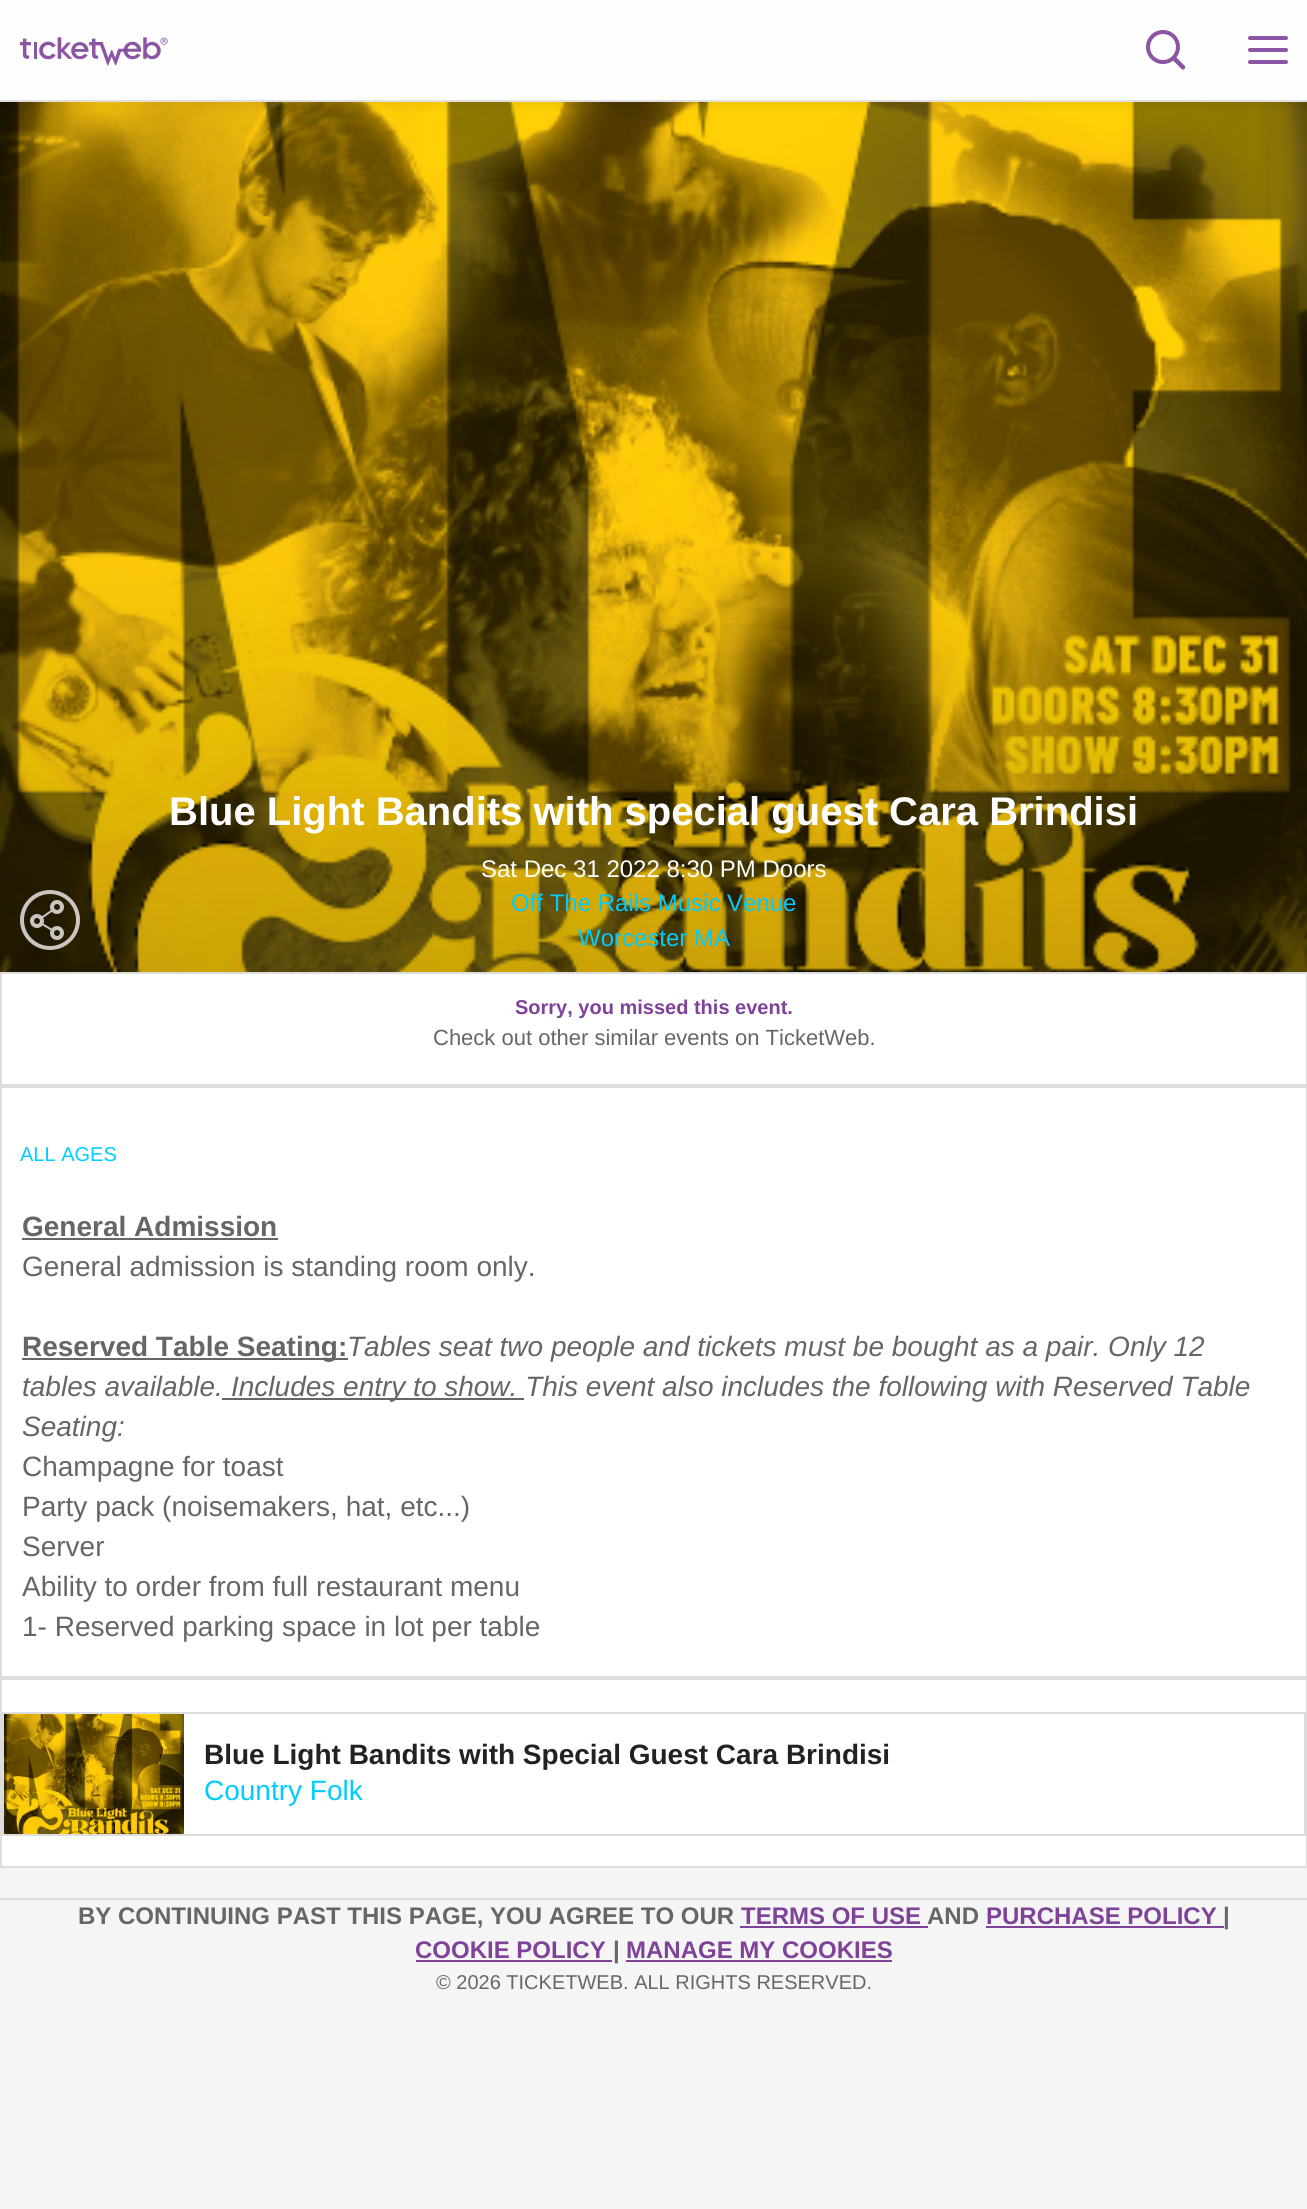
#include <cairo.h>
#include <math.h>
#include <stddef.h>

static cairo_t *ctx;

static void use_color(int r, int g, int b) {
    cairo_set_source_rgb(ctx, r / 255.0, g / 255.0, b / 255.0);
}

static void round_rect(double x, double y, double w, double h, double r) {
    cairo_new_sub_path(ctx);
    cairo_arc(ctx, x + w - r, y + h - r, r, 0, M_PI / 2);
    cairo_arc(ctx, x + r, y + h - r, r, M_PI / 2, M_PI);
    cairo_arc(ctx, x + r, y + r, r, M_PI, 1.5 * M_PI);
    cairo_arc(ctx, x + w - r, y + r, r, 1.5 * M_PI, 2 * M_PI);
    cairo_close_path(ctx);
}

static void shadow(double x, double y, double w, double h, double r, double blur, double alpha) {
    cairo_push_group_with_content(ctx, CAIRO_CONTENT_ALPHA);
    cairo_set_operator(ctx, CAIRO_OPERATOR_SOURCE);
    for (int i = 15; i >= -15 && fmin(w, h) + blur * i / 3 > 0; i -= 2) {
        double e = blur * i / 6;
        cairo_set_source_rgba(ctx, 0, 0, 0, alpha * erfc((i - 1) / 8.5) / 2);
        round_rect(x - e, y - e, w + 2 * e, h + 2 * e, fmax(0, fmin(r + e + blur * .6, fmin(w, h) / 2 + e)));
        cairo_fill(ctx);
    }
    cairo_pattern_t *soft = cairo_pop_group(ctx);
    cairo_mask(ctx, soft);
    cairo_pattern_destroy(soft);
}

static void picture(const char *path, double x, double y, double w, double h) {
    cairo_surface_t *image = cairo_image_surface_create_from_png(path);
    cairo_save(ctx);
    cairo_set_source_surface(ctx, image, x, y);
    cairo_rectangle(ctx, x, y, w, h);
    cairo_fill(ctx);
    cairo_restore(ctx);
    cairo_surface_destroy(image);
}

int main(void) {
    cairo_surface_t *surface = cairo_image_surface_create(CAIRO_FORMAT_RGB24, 1307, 2209);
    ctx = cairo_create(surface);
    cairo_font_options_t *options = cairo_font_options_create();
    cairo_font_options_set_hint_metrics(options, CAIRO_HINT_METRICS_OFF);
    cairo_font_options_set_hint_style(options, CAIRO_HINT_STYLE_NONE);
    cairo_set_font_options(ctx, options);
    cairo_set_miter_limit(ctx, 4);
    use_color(245, 245, 245);
    cairo_paint(ctx);
    picture("img4.png", 0, 100, 1307, 872);
    cairo_save(ctx);
    cairo_rectangle(ctx, 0, 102, 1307, 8);
    cairo_clip(ctx);
    use_color(0, 0, 0);
    shadow(0, 0, 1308, 102, 0, 10, 0.09);
    cairo_restore(ctx);
    cairo_set_source_rgba(ctx, 1, 1, 1, 0.9);
    cairo_rectangle(ctx, 0, 0, 1307, 102);
    cairo_fill(ctx);
    cairo_set_source_rgba(ctx, 0.867, 0.867, 0.867, 0.9);
    cairo_rectangle(ctx, 0, 100, 1307, 2);
    cairo_fill(ctx);
    picture("img1.png", 20, 37, 148, 29);
    picture("img2.png", 1146, 30, 40, 40);
    picture("img3.png", 1248, 36, 40, 28);
    cairo_select_font_face(ctx, "Liberation Sans", CAIRO_FONT_SLANT_NORMAL, CAIRO_FONT_WEIGHT_BOLD);
    cairo_set_font_size(ctx, 40);
    use_color(255, 255, 255);
    cairo_move_to(ctx, 169, 825);
    cairo_show_text(ctx, "Blue Light Bandits with special guest Cara Brindisi");
    picture("img5.png", 20, 890, 60, 60);
    cairo_select_font_face(ctx, "Liberation Sans", CAIRO_FONT_SLANT_NORMAL, CAIRO_FONT_WEIGHT_NORMAL);
    cairo_set_font_size(ctx, 24);
    cairo_move_to(ctx, 481, 877);
    cairo_show_text(ctx, "Sat Dec 31 2022 8:30 PM Doors");
    use_color(0, 204, 255);
    cairo_move_to(ctx, 511, 911);
    cairo_show_text(ctx, "Off The Rails Music Venue");
    cairo_move_to(ctx, 578, 946);
    cairo_show_text(ctx, "Worcester MA");
    use_color(255, 255, 255);
    cairo_rectangle(ctx, 1, 973, 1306, 112);
    cairo_fill_preserve(ctx);
    use_color(221, 221, 221);
    cairo_stroke(ctx);
    cairo_select_font_face(ctx, "Liberation Sans", CAIRO_FONT_SLANT_NORMAL, CAIRO_FONT_WEIGHT_BOLD);
    cairo_set_font_size(ctx, 20);
    use_color(126, 66, 153);
    cairo_move_to(ctx, 515, 1014);
    cairo_show_text(ctx, "Sorry, you missed this event.");
    cairo_select_font_face(ctx, "Liberation Sans", CAIRO_FONT_SLANT_NORMAL, CAIRO_FONT_WEIGHT_NORMAL);
    cairo_set_font_size(ctx, 22);
    use_color(102, 102, 102);
    cairo_move_to(ctx, 433, 1045);
    cairo_show_text(ctx, "Check out other similar events on TicketWeb.");
    use_color(255, 255, 255);
    cairo_rectangle(ctx, 1, 1087, 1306, 590);
    cairo_fill_preserve(ctx);
    use_color(221, 221, 221);
    cairo_stroke(ctx);
    cairo_set_font_size(ctx, 20);
    use_color(0, 204, 255);
    cairo_move_to(ctx, 20, 1161);
    cairo_show_text(ctx, "ALL AGES");
    cairo_select_font_face(ctx, "Liberation Sans", CAIRO_FONT_SLANT_NORMAL, CAIRO_FONT_WEIGHT_BOLD);
    cairo_set_font_size(ctx, 28);
    use_color(102, 102, 102);
    cairo_move_to(ctx, 22, 1236);
    cairo_show_text(ctx, "General Admission");
    cairo_rectangle(ctx, 22, 1238, 256, 2);
    cairo_fill(ctx);
    cairo_select_font_face(ctx, "Liberation Sans", CAIRO_FONT_SLANT_NORMAL, CAIRO_FONT_WEIGHT_NORMAL);
    cairo_move_to(ctx, 22, 1276);
    cairo_show_text(ctx, "General admission is standing room only.");
    cairo_rectangle(ctx, 22, 1358, 326, 2);
    cairo_fill(ctx);
    cairo_select_font_face(ctx, "Liberation Sans", CAIRO_FONT_SLANT_NORMAL, CAIRO_FONT_WEIGHT_BOLD);
    cairo_move_to(ctx, 22, 1356);
    cairo_show_text(ctx, "Reserved Table Seating:");
    cairo_select_font_face(ctx, "Liberation Sans", CAIRO_FONT_SLANT_ITALIC, CAIRO_FONT_WEIGHT_NORMAL);
    cairo_move_to(ctx, 347, 1356);
    cairo_show_text(ctx, "Tables seat two people and tickets must be bought as a pair. Only 12");
    cairo_move_to(ctx, 22, 1396);
    cairo_show_text(ctx, "tables available.");
    cairo_rectangle(ctx, 222, 1398, 302, 2);
    cairo_fill(ctx);
    cairo_move_to(ctx, 231, 1396);
    cairo_show_text(ctx, "Includes entry to show. This event also includes the following with Reserved Table");
    cairo_move_to(ctx, 22, 1436);
    cairo_show_text(ctx, "Seating:");
    cairo_select_font_face(ctx, "Liberation Sans", CAIRO_FONT_SLANT_NORMAL, CAIRO_FONT_WEIGHT_NORMAL);
    cairo_move_to(ctx, 22, 1476);
    cairo_show_text(ctx, "Champagne for toast");
    cairo_move_to(ctx, 22, 1516);
    cairo_show_text(ctx, "Party pack (noisemakers, hat, etc...)");
    cairo_move_to(ctx, 22, 1556);
    cairo_show_text(ctx, "Server");
    cairo_move_to(ctx, 22, 1596);
    cairo_show_text(ctx, "Ability to order from full restaurant menu");
    cairo_move_to(ctx, 22, 1636);
    cairo_show_text(ctx, "1- Reserved parking space in lot per table");
    use_color(255, 255, 255);
    cairo_rectangle(ctx, 1, 1679, 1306, 188);
    cairo_fill_preserve(ctx);
    use_color(221, 221, 221);
    cairo_stroke(ctx);
    cairo_rectangle(ctx, 3, 1713, 1302, 122);
    cairo_stroke(ctx);
    picture("img6.png", 4, 1714, 180, 120);
    cairo_select_font_face(ctx, "Liberation Sans", CAIRO_FONT_SLANT_NORMAL, CAIRO_FONT_WEIGHT_BOLD);
    use_color(34, 34, 34);
    cairo_move_to(ctx, 204, 1764);
    cairo_show_text(ctx, "Blue Light Bandits with Special Guest Cara Brindisi");
    cairo_select_font_face(ctx, "Liberation Sans", CAIRO_FONT_SLANT_NORMAL, CAIRO_FONT_WEIGHT_NORMAL);
    use_color(0, 204, 255);
    cairo_move_to(ctx, 204, 1800);
    cairo_show_text(ctx, "Country Folk");
    use_color(221, 221, 221);
    cairo_rectangle(ctx, 0, 1898, 1307, 2);
    cairo_fill(ctx);
    cairo_select_font_face(ctx, "Liberation Sans", CAIRO_FONT_SLANT_NORMAL, CAIRO_FONT_WEIGHT_BOLD);
    cairo_set_font_size(ctx, 24);
    use_color(102, 102, 102);
    cairo_move_to(ctx, 78, 1924);
    cairo_show_text(ctx, "BY CONTINUING PAST THIS PAGE, YOU AGREE TO OUR");
    use_color(126, 66, 153);
    cairo_move_to(ctx, 741, 1924);
    cairo_show_text(ctx, "TERMS OF USE");
    cairo_rectangle(ctx, 740, 1926, 188, 2);
    cairo_fill(ctx);
    use_color(102, 102, 102);
    cairo_move_to(ctx, 927, 1924);
    cairo_show_text(ctx, "AND");
    use_color(126, 66, 153);
    cairo_move_to(ctx, 986, 1924);
    cairo_show_text(ctx, "PURCHASE POLICY");
    cairo_rectangle(ctx, 986, 1926, 238, 2);
    cairo_fill(ctx);
    use_color(102, 102, 102);
    cairo_move_to(ctx, 1223, 1924);
    cairo_show_text(ctx, "|");
    use_color(126, 66, 153);
    cairo_move_to(ctx, 415, 1958);
    cairo_show_text(ctx, "COOKIE POLICY");
    cairo_rectangle(ctx, 416, 1960, 196, 2);
    cairo_fill(ctx);
    use_color(102, 102, 102);
    cairo_move_to(ctx, 613, 1958);
    cairo_show_text(ctx, "|");
    use_color(126, 66, 153);
    cairo_move_to(ctx, 626, 1958);
    cairo_show_text(ctx, "MANAGE MY COOKIES");
    cairo_rectangle(ctx, 626, 1960, 266, 2);
    cairo_fill(ctx);
    cairo_select_font_face(ctx, "Liberation Sans", CAIRO_FONT_SLANT_NORMAL, CAIRO_FONT_WEIGHT_NORMAL);
    cairo_set_font_size(ctx, 20);
    use_color(102, 102, 102);
    cairo_move_to(ctx, 436, 1989);
    cairo_show_text(ctx, "© 2026 TICKETWEB. ALL RIGHTS RESERVED.");
    cairo_surface_write_to_png(surface, "result.png");
    cairo_font_options_destroy(options);
    cairo_destroy(ctx);
    cairo_surface_destroy(surface);
    return 0;
}
